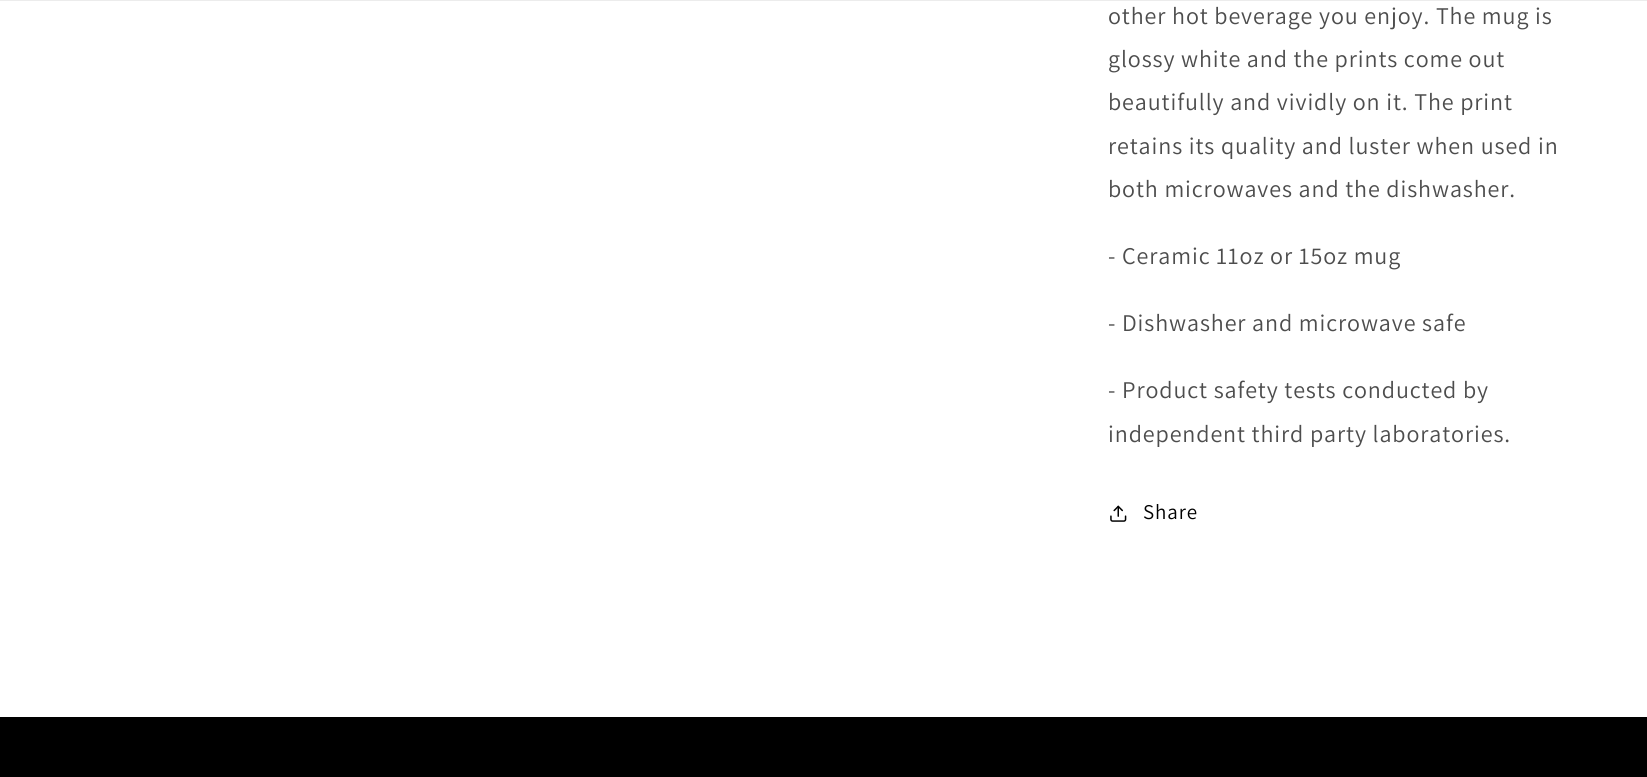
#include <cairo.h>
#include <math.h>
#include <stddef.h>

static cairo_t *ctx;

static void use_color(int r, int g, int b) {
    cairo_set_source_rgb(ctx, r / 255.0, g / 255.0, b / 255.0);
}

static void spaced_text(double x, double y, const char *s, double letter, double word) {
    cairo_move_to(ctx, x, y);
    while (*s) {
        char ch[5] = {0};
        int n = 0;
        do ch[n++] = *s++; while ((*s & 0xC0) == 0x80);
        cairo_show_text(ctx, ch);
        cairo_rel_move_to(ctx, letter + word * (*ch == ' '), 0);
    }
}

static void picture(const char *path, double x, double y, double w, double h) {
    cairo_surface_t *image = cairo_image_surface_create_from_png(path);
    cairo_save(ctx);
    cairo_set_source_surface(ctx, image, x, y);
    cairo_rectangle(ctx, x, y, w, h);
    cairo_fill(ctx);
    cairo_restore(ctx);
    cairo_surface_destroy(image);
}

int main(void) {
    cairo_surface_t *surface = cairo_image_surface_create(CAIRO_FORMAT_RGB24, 1647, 777);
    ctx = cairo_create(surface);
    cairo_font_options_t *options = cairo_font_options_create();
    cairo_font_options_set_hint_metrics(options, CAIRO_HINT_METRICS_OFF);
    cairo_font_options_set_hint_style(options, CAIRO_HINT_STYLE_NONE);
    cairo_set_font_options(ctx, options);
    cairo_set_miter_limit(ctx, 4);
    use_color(255, 255, 255);
    cairo_paint(ctx);
    use_color(236, 236, 236);
    cairo_rectangle(ctx, 0, 0, 1647, 1);
    cairo_fill(ctx);
    cairo_select_font_face(ctx, "Assistant", CAIRO_FONT_SLANT_NORMAL, CAIRO_FONT_WEIGHT_NORMAL);
    cairo_set_font_size(ctx, 24);
    use_color(77, 77, 77);
    spaced_text(1108, 24, "other hot beverage you enjoy. The mug is", 0.9, 0);
    spaced_text(1108, 67, "glossy white and the prints come out", 0.9, 0);
    spaced_text(1108, 110, "beautifully and vividly on it. The print", 0.9, 0);
    spaced_text(1108, 154, "retains its quality and luster when used in", 0.9, 0);
    spaced_text(1108, 197, "both microwaves and the dishwasher.", 0.9, 0);
    spaced_text(1108, 264, "- Ceramic 11oz or 15oz mug", 0.9, 0);
    spaced_text(1108, 331, "- Dishwasher and microwave safe", 0.9, 0);
    spaced_text(1108, 398, "- Product safety tests conducted by", 0.9, 0);
    spaced_text(1108, 442, "independent third party laboratories.", 0.9, 0);
    picture("img1.png", 1110, 505, 17, 17);
    cairo_set_font_size(ctx, 21);
    use_color(0, 0, 0);
    spaced_text(1143, 519, "Share", 0.9, 0);
    cairo_rectangle(ctx, 0, 717, 1647, 60);
    cairo_fill(ctx);
    cairo_surface_write_to_png(surface, "result.png");
    cairo_font_options_destroy(options);
    cairo_destroy(ctx);
    cairo_surface_destroy(surface);
    return 0;
}
